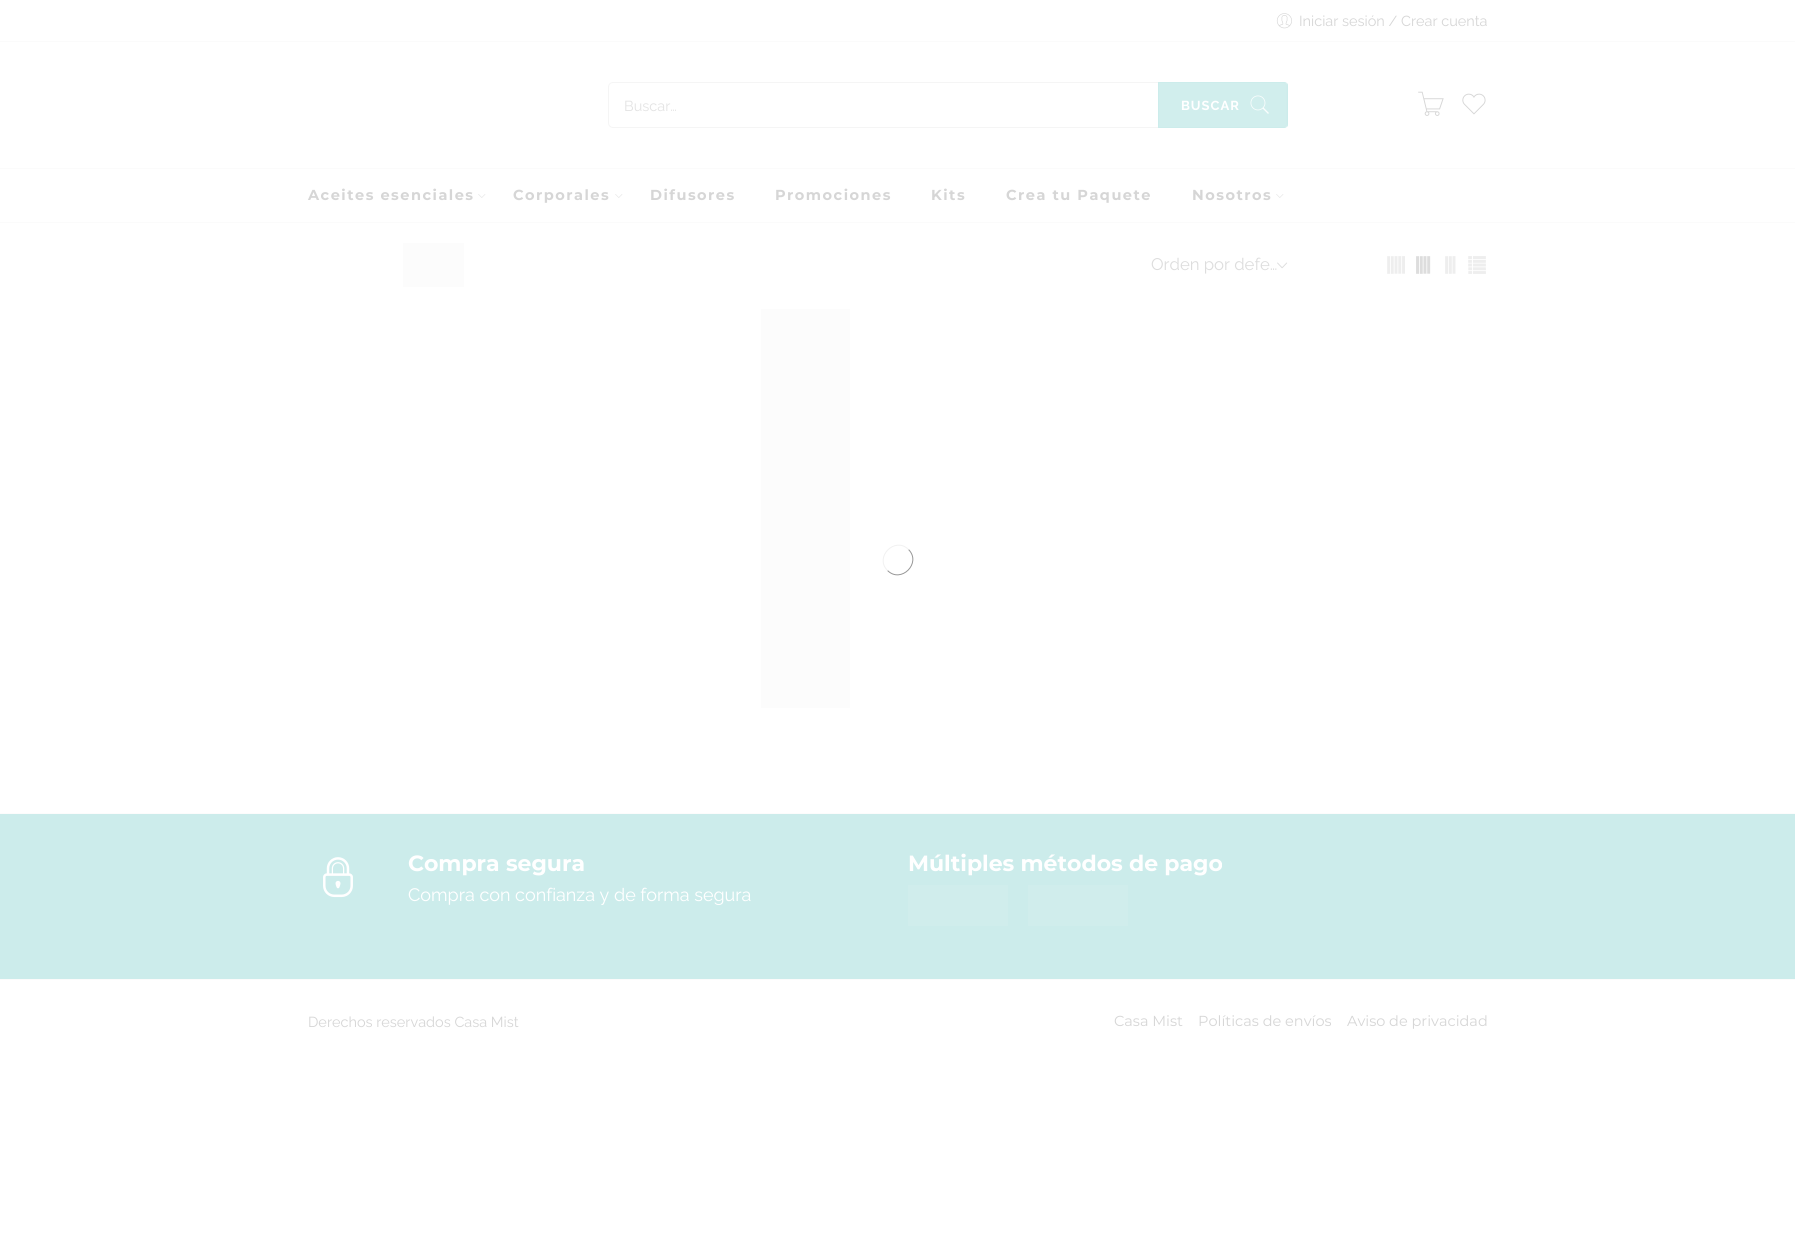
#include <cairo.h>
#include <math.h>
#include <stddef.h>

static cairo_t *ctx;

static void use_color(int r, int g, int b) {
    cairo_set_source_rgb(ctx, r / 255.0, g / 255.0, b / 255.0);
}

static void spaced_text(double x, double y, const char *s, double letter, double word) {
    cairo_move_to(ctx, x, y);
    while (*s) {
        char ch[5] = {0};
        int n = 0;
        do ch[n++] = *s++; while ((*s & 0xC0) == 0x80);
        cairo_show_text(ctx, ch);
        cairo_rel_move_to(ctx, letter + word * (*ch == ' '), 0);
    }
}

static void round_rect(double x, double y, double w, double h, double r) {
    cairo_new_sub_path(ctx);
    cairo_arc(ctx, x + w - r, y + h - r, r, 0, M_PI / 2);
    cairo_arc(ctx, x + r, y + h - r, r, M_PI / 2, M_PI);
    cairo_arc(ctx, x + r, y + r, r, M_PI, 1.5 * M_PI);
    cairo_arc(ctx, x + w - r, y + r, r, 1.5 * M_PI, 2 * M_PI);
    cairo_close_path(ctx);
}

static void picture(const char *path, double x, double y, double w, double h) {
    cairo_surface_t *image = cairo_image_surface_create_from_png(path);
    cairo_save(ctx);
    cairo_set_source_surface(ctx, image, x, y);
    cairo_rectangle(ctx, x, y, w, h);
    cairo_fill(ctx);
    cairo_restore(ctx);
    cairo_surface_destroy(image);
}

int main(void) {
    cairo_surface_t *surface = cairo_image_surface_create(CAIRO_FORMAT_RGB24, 1795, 1245);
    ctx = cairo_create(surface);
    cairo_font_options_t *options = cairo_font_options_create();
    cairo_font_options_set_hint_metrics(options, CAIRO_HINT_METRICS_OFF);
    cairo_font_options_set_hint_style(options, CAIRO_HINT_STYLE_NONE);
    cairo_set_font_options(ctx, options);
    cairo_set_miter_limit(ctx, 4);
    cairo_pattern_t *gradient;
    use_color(255, 255, 255);
    cairo_paint(ctx);
    use_color(251, 251, 251);
    cairo_rectangle(ctx, 0, 41, 1795, 1);
    cairo_fill(ctx);
    picture("img1.png", 1276, 13, 16, 16);
    cairo_select_font_face(ctx, "Raleway", CAIRO_FONT_SLANT_NORMAL, CAIRO_FONT_WEIGHT_NORMAL);
    cairo_set_font_size(ctx, 14.5);
    use_color(214, 214, 214);
    cairo_move_to(ctx, 1299, 26);
    cairo_show_text(ctx, "Iniciar sesión / Crear cuenta");
    round_rect(608.5, 82.5, 678, 45, 4.5);
    use_color(245, 245, 245);
    cairo_set_line_width(ctx, 1);
    cairo_stroke(ctx);
    use_color(227, 227, 227);
    cairo_move_to(ctx, 624, 111);
    cairo_show_text(ctx, "Buscar…");
    cairo_set_source_rgba(ctx, 0.8, 0.925, 0.922, 0.9);
    cairo_new_path(ctx);
    cairo_move_to(ctx, 1158, 82);
    cairo_line_to(ctx, 1284, 82);
    cairo_curve_to(ctx, 1286, 82, 1288, 84, 1288, 86);
    cairo_line_to(ctx, 1288, 124);
    cairo_curve_to(ctx, 1288, 126, 1286, 128, 1284, 128);
    cairo_line_to(ctx, 1158, 128);
    cairo_close_path(ctx);
    cairo_fill(ctx);
    cairo_set_fill_rule(ctx, CAIRO_FILL_RULE_EVEN_ODD);
    cairo_new_path(ctx);
    cairo_move_to(ctx, 1158, 82);
    cairo_line_to(ctx, 1158, 128);
    cairo_line_to(ctx, 1284, 128);
    cairo_line_to(ctx, 1287, 127);
    cairo_line_to(ctx, 1159, 127);
    cairo_line_to(ctx, 1159, 83);
    cairo_line_to(ctx, 1287, 83);
    cairo_line_to(ctx, 1284, 82);
    cairo_close_path(ctx);
    cairo_move_to(ctx, 1287, 83);
    cairo_line_to(ctx, 1287, 127);
    cairo_curve_to(ctx, 1288, 126, 1288, 125, 1288, 124);
    cairo_line_to(ctx, 1288, 86);
    cairo_curve_to(ctx, 1288, 85, 1288, 84, 1287, 83);
    cairo_close_path(ctx);
    cairo_fill(ctx);
    cairo_select_font_face(ctx, "Raleway", CAIRO_FONT_SLANT_NORMAL, CAIRO_FONT_WEIGHT_BOLD);
    cairo_set_font_size(ctx, 13);
    use_color(255, 255, 255);
    spaced_text(1181, 110, "BUSCAR", 1, 0);
    picture("img2.png", 1250, 95, 19, 19);
    picture("img3.png", 1418, 91, 26, 25);
    picture("img4.png", 1462, 93, 24, 22);
    use_color(251, 251, 251);
    cairo_rectangle(ctx, 0, 168, 1795, 1);
    cairo_fill(ctx);
    cairo_rectangle(ctx, 0, 222, 1795, 1);
    cairo_fill(ctx);
    cairo_select_font_face(ctx, "Montserrat", CAIRO_FONT_SLANT_NORMAL, CAIRO_FONT_WEIGHT_BOLD);
    cairo_set_font_size(ctx, 14.5);
    use_color(214, 214, 214);
    spaced_text(308, 200, "Aceites esenciales", 1.5, 0);
    picture("img5.png", 478, 194, 8, 4);
    spaced_text(513, 200, "Corporales", 1.5, 0);
    picture("img5.png", 615, 194, 8, 4);
    spaced_text(650, 200, "Difusores", 1.5, 0);
    spaced_text(775, 200, "Promociones", 1.5, 0);
    spaced_text(931, 200, "Kits", 1.5, 0);
    spaced_text(1006, 200, "Crea tu Paquete", 1.5, 0);
    spaced_text(1192, 200, "Nosotros", 1.5, 0);
    picture("img5.png", 1276, 194, 8, 4);
    gradient = cairo_pattern_create_linear(277, 265, 1090, 265);
    cairo_pattern_add_color_stop_rgba(gradient, 0.08, 0.996, 0.996, 0.996, 1);
    cairo_pattern_add_color_stop_rgba(gradient, 0.18, 0.988, 0.988, 0.988, 1);
    cairo_pattern_add_color_stop_rgba(gradient, 0.38, 0.996, 0.996, 0.996, 1);
    cairo_set_source(ctx, gradient);
    cairo_pattern_destroy(gradient);
    cairo_rectangle(ctx, 403, 243, 61, 44);
    cairo_fill(ctx);
    cairo_select_font_face(ctx, "Raleway", CAIRO_FONT_SLANT_NORMAL, CAIRO_FONT_WEIGHT_NORMAL);
    cairo_set_font_size(ctx, 16.75);
    use_color(221, 221, 221);
    cairo_move_to(ctx, 1151, 270);
    cairo_show_text(ctx, "Orden por defe…");
    picture("img6.png", 1277, 262, 11, 7);
    cairo_select_font_face(ctx, "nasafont", CAIRO_FONT_SLANT_NORMAL, CAIRO_FONT_WEIGHT_NORMAL);
    cairo_set_font_size(ctx, 22);
    use_color(238, 238, 238);
    cairo_move_to(ctx, 1385, 276);
    cairo_show_text(ctx, "!");
    use_color(221, 221, 221);
    cairo_move_to(ctx, 1412, 276);
    cairo_show_text(ctx, "9");
    use_color(238, 238, 238);
    cairo_move_to(ctx, 1439, 276);
    cairo_show_text(ctx, "8");
    cairo_move_to(ctx, 1466, 276);
    cairo_show_text(ctx, "#");
    gradient = cairo_pattern_create_linear(578, 509, 1758, 508);
    cairo_pattern_add_color_stop_rgba(gradient, 0.08, 0.996, 0.996, 0.996, 1);
    cairo_pattern_add_color_stop_rgba(gradient, 0.18, 0.988, 0.988, 0.988, 1);
    cairo_pattern_add_color_stop_rgba(gradient, 0.38, 0.996, 0.996, 0.996, 1);
    cairo_set_source(ctx, gradient);
    cairo_pattern_destroy(gradient);
    cairo_rectangle(ctx, 761, 309, 89, 399);
    cairo_fill(ctx);
    use_color(204, 236, 235);
    cairo_rectangle(ctx, 0, 814, 1795, 165);
    cairo_fill(ctx);
    use_color(252, 252, 252);
    cairo_rectangle(ctx, 0, 813, 1795, 1);
    cairo_fill(ctx);
    picture("img7.png", 323, 857, 30, 41);
    cairo_select_font_face(ctx, "Montserrat", CAIRO_FONT_SLANT_NORMAL, CAIRO_FONT_WEIGHT_BOLD);
    use_color(255, 255, 255);
    cairo_move_to(ctx, 408, 871);
    cairo_show_text(ctx, "Compra segura");
    cairo_select_font_face(ctx, "Raleway", CAIRO_FONT_SLANT_NORMAL, CAIRO_FONT_WEIGHT_NORMAL);
    cairo_set_font_size(ctx, 18);
    cairo_move_to(ctx, 408, 901);
    cairo_show_text(ctx, "Compra con confianza y de forma segura");
    cairo_select_font_face(ctx, "Montserrat", CAIRO_FONT_SLANT_NORMAL, CAIRO_FONT_WEIGHT_BOLD);
    cairo_set_font_size(ctx, 22);
    cairo_move_to(ctx, 908, 871);
    cairo_show_text(ctx, "Múltiples métodos de pago");
    use_color(208, 237, 236);
    cairo_rectangle(ctx, 908, 885, 100, 41);
    cairo_fill(ctx);
    cairo_rectangle(ctx, 1028, 885, 100, 41);
    cairo_fill(ctx);
    use_color(251, 251, 251);
    cairo_rectangle(ctx, 0, 979, 1795, 1);
    cairo_fill(ctx);
    cairo_select_font_face(ctx, "Raleway", CAIRO_FONT_SLANT_NORMAL, CAIRO_FONT_WEIGHT_NORMAL);
    cairo_set_font_size(ctx, 14.5);
    use_color(214, 214, 214);
    cairo_move_to(ctx, 308, 1027);
    cairo_show_text(ctx, "Derechos reservados Casa Mist");
    cairo_select_font_face(ctx, "Montserrat", CAIRO_FONT_SLANT_NORMAL, CAIRO_FONT_WEIGHT_NORMAL);
    cairo_move_to(ctx, 1114, 1026);
    cairo_show_text(ctx, "Casa Mist");
    cairo_move_to(ctx, 1198, 1026);
    cairo_show_text(ctx, "Políticas de envíos");
    cairo_move_to(ctx, 1347, 1026);
    cairo_show_text(ctx, "Aviso de privacidad");
    cairo_new_path(ctx);
    cairo_move_to(ctx, 908.5, 549.5);
    cairo_curve_to(ctx, 922, 563, 901, 584, 887.5, 570.5);
    use_color(151, 151, 151);
    cairo_stroke(ctx);
    cairo_new_path(ctx);
    cairo_move_to(ctx, 887.5, 570.5);
    cairo_curve_to(ctx, 874, 557, 895, 536, 908.5, 549.5);
    use_color(241, 241, 241);
    cairo_stroke(ctx);
    cairo_surface_write_to_png(surface, "result.png");
    cairo_font_options_destroy(options);
    cairo_destroy(ctx);
    cairo_surface_destroy(surface);
    return 0;
}
